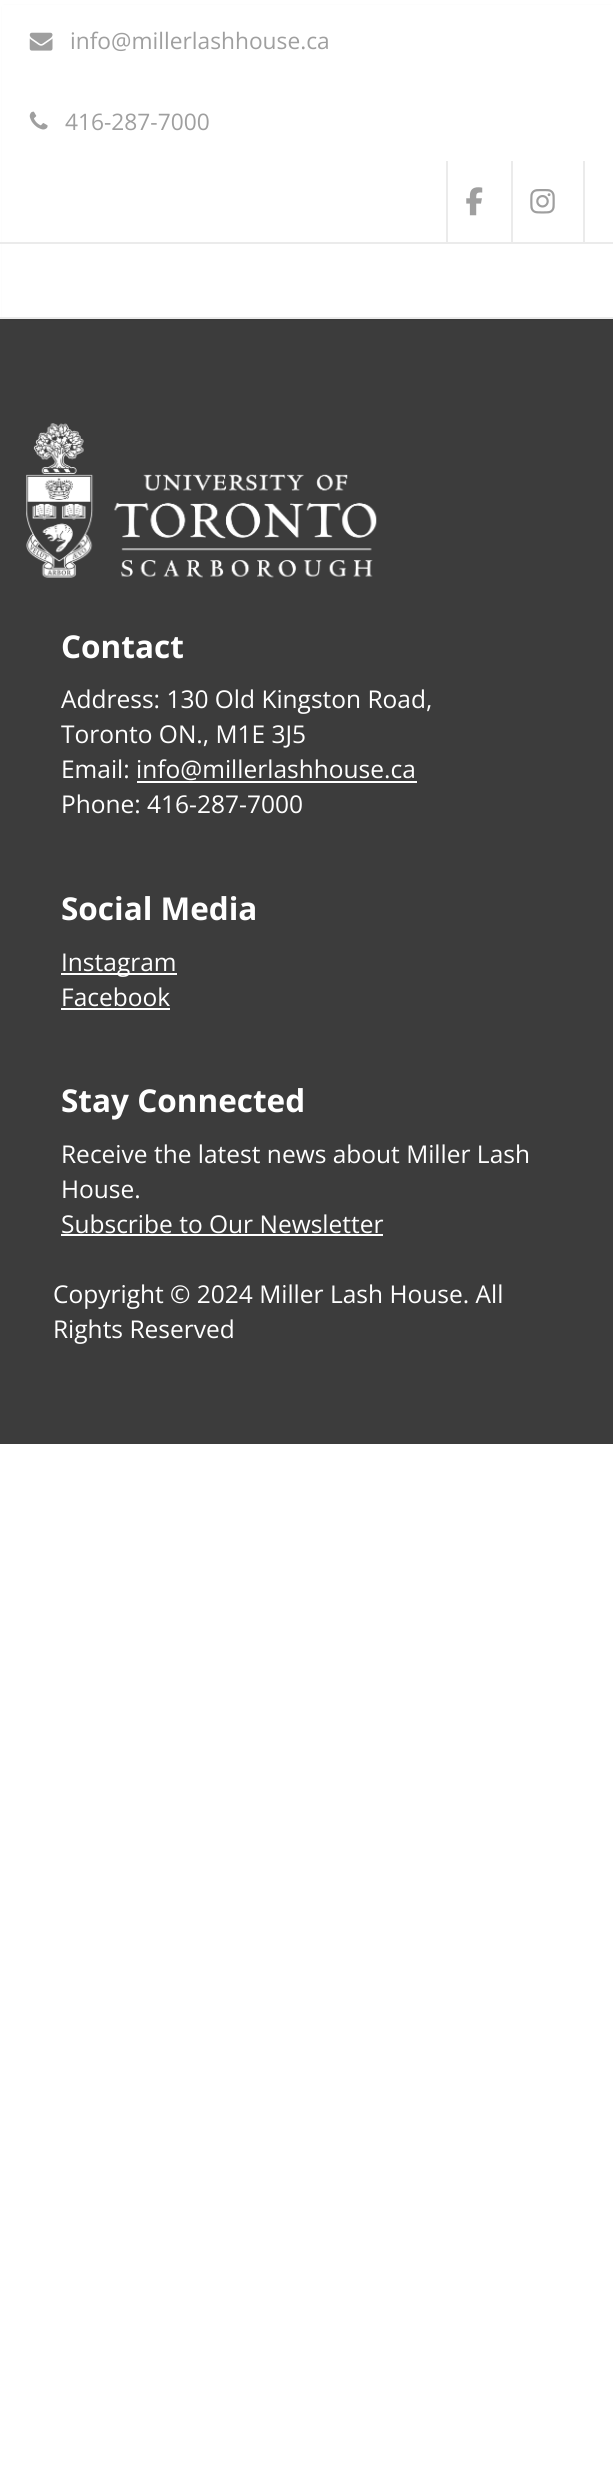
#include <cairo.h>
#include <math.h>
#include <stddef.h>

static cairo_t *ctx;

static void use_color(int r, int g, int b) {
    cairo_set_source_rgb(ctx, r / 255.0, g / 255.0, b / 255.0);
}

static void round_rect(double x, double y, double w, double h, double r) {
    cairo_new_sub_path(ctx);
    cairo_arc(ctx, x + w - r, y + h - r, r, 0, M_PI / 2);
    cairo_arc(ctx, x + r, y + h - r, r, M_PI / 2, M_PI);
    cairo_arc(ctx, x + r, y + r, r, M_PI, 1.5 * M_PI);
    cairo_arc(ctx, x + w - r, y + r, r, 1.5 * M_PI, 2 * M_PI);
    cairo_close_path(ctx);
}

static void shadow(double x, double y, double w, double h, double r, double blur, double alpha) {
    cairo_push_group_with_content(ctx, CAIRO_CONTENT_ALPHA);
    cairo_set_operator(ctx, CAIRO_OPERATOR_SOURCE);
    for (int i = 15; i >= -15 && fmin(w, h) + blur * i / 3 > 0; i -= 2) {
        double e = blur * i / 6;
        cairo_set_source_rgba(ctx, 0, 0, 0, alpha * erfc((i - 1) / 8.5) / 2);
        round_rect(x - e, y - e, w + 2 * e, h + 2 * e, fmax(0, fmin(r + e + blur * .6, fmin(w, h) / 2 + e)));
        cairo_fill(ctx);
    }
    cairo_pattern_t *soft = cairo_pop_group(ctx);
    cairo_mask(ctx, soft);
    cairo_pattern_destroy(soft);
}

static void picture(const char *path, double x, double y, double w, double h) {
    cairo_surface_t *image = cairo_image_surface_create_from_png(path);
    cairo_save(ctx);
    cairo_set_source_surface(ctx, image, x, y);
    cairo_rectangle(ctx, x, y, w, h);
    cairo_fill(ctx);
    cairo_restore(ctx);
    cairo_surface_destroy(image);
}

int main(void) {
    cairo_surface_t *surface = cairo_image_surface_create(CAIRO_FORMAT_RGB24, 613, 2473);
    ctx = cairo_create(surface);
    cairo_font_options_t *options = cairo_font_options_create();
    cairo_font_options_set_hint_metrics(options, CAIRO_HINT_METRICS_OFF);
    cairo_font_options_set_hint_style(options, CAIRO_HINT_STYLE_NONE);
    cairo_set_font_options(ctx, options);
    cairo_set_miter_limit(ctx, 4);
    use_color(255, 255, 255);
    cairo_paint(ctx);
    use_color(60, 60, 60);
    cairo_rectangle(ctx, 0, 319, 613, 1125);
    cairo_fill(ctx);
    use_color(0, 0, 0);
    shadow(4, 7, 607, 312, 0, 2, 0.08);
    use_color(255, 255, 255);
    cairo_rectangle(ctx, 2, 244, 611, 73);
    cairo_fill(ctx);
    use_color(235, 235, 235);
    cairo_rectangle(ctx, 0, 317, 613, 2);
    cairo_fill(ctx);
    use_color(255, 255, 255);
    cairo_rectangle(ctx, 2, 5, 611, 237);
    cairo_fill(ctx);
    use_color(235, 235, 235);
    cairo_rectangle(ctx, 0, 242, 613, 2);
    cairo_fill(ctx);
    picture("img1.png", 29, 32, 24, 19);
    cairo_select_font_face(ctx, "Open Sans", CAIRO_FONT_SLANT_NORMAL, CAIRO_FONT_WEIGHT_NORMAL);
    cairo_set_font_size(ctx, 22.75);
    use_color(159, 159, 159);
    cairo_move_to(ctx, 70, 49);
    cairo_show_text(ctx, "info@millerlashhouse.ca");
    picture("img2.png", 29, 111, 19, 19);
    cairo_move_to(ctx, 65, 130);
    cairo_show_text(ctx, "416-287-7000");
    use_color(235, 235, 235);
    cairo_rectangle(ctx, 446, 161, 2, 81);
    cairo_fill(ctx);
    picture("img3.png", 466, 187, 17, 29);
    cairo_rectangle(ctx, 583, 161, 2, 81);
    cairo_fill(ctx);
    cairo_rectangle(ctx, 511, 161, 2, 81);
    cairo_fill(ctx);
    picture("img4.png", 530, 189, 25, 25);
    picture("img5.png", 26, 423, 351, 155);
    cairo_select_font_face(ctx, "Open Sans", CAIRO_FONT_SLANT_NORMAL, CAIRO_FONT_WEIGHT_BOLD);
    cairo_set_font_size(ctx, 31.5);
    use_color(255, 255, 255);
    cairo_move_to(ctx, 61, 658);
    cairo_show_text(ctx, "Contact");
    cairo_select_font_face(ctx, "Open Sans", CAIRO_FONT_SLANT_NORMAL, CAIRO_FONT_WEIGHT_NORMAL);
    cairo_set_font_size(ctx, 24.5);
    cairo_move_to(ctx, 61, 708);
    cairo_show_text(ctx, "Address: 130 Old Kingston Road,");
    cairo_move_to(ctx, 61, 743);
    cairo_show_text(ctx, "Toronto ON., M1E 3J5");
    cairo_move_to(ctx, 61, 778);
    cairo_show_text(ctx, "Email: info@millerlashhouse.ca");
    cairo_rectangle(ctx, 137, 781, 280, 2);
    cairo_fill(ctx);
    cairo_move_to(ctx, 61, 813);
    cairo_show_text(ctx, "Phone: 416-287-7000");
    cairo_select_font_face(ctx, "Open Sans", CAIRO_FONT_SLANT_NORMAL, CAIRO_FONT_WEIGHT_BOLD);
    cairo_set_font_size(ctx, 31.5);
    cairo_move_to(ctx, 61, 920);
    cairo_show_text(ctx, "Social Media");
    cairo_rectangle(ctx, 61, 973, 116, 2);
    cairo_fill(ctx);
    cairo_select_font_face(ctx, "Open Sans", CAIRO_FONT_SLANT_NORMAL, CAIRO_FONT_WEIGHT_NORMAL);
    cairo_set_font_size(ctx, 24.5);
    cairo_move_to(ctx, 61, 971);
    cairo_show_text(ctx, "Instagram");
    cairo_move_to(ctx, 61, 1006);
    cairo_show_text(ctx, "Facebook");
    cairo_rectangle(ctx, 61, 1008, 109, 2);
    cairo_fill(ctx);
    cairo_select_font_face(ctx, "Open Sans", CAIRO_FONT_SLANT_NORMAL, CAIRO_FONT_WEIGHT_BOLD);
    cairo_set_font_size(ctx, 31.5);
    cairo_move_to(ctx, 61, 1112);
    cairo_show_text(ctx, "Stay Connected");
    cairo_select_font_face(ctx, "Open Sans", CAIRO_FONT_SLANT_NORMAL, CAIRO_FONT_WEIGHT_NORMAL);
    cairo_set_font_size(ctx, 24.5);
    cairo_move_to(ctx, 61, 1163);
    cairo_show_text(ctx, "Receive the latest news about Miller Lash");
    cairo_move_to(ctx, 61, 1198);
    cairo_show_text(ctx, "House.");
    cairo_move_to(ctx, 61, 1233);
    cairo_show_text(ctx, "Subscribe to Our Newsletter");
    cairo_rectangle(ctx, 61, 1234, 322, 2);
    cairo_fill(ctx);
    cairo_move_to(ctx, 53, 1303);
    cairo_show_text(ctx, "Copyright © 2024 Miller Lash House. All");
    cairo_move_to(ctx, 53, 1338);
    cairo_show_text(ctx, "Rights Reserved");
    cairo_surface_write_to_png(surface, "result.png");
    cairo_font_options_destroy(options);
    cairo_destroy(ctx);
    cairo_surface_destroy(surface);
    return 0;
}
